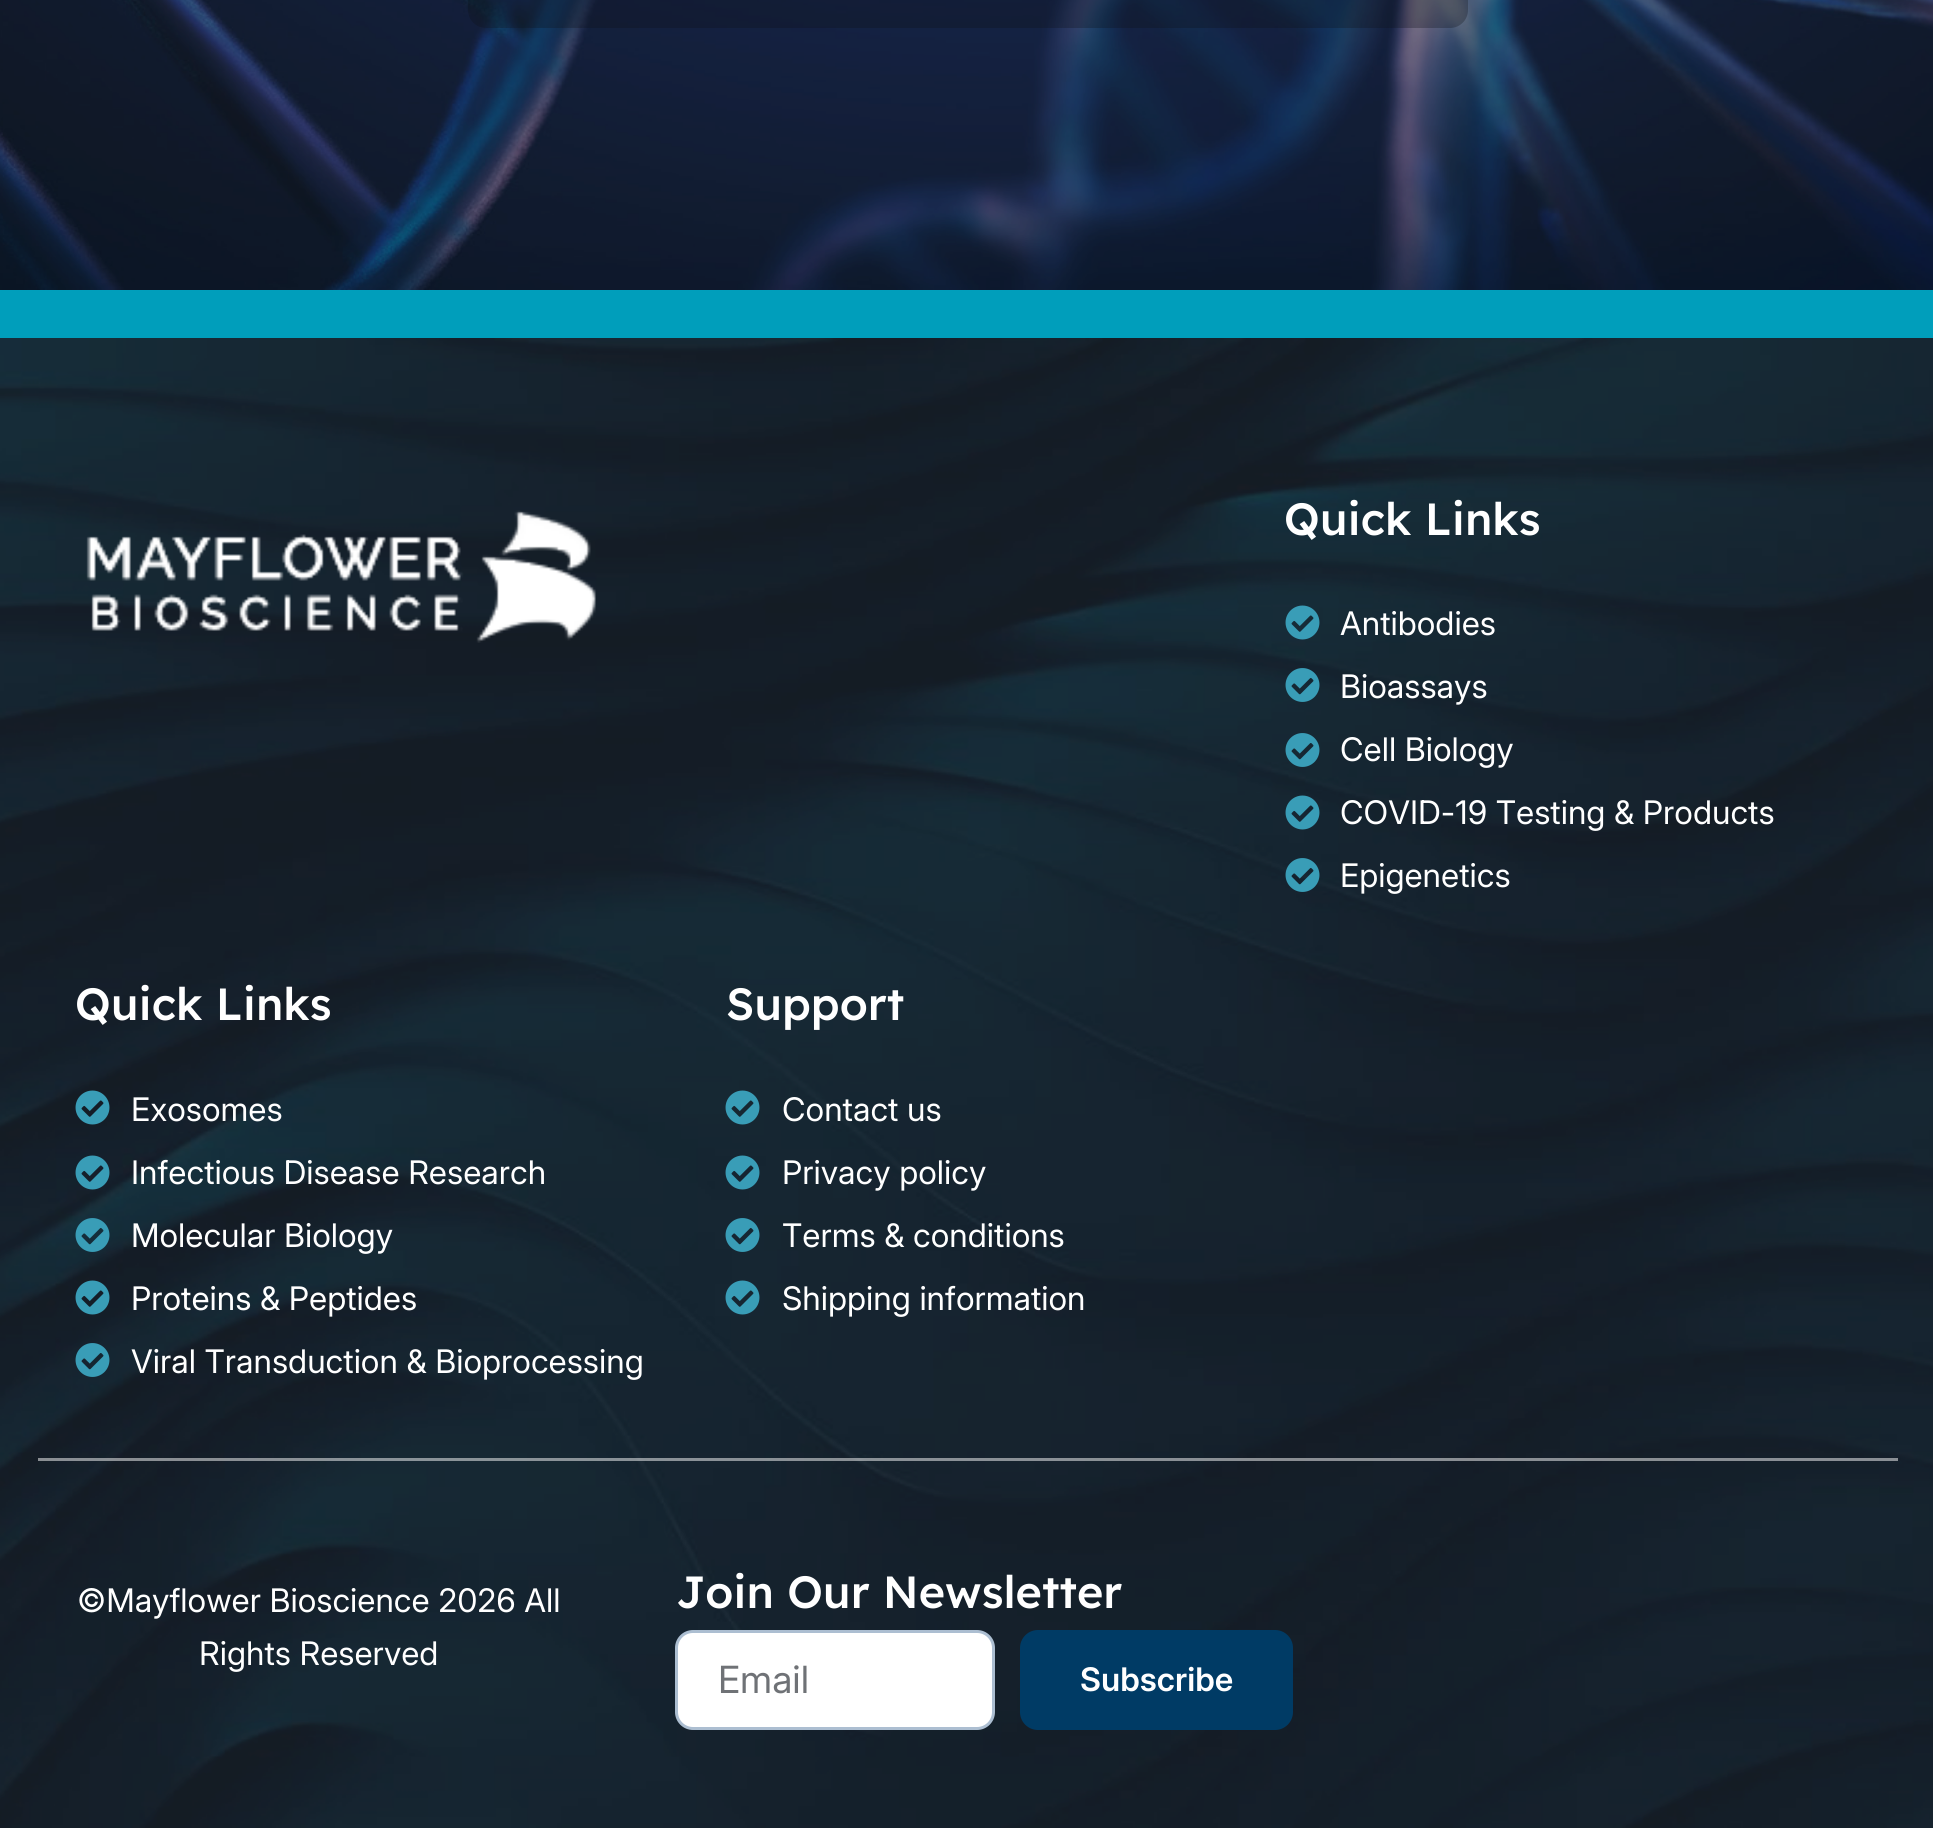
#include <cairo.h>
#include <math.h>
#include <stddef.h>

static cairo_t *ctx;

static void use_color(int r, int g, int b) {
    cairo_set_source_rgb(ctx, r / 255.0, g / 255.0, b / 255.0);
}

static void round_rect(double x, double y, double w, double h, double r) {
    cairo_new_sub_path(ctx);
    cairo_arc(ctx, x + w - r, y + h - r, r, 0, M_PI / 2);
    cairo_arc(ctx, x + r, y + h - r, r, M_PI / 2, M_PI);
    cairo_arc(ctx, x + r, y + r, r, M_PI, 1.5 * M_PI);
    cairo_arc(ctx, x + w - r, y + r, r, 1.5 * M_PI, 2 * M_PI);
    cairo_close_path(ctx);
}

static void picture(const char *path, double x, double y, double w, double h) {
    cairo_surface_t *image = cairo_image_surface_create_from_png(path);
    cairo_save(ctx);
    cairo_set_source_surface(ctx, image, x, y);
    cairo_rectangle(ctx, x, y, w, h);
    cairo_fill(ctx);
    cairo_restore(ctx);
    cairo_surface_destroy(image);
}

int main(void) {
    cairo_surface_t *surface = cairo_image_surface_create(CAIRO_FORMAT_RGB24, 1933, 1828);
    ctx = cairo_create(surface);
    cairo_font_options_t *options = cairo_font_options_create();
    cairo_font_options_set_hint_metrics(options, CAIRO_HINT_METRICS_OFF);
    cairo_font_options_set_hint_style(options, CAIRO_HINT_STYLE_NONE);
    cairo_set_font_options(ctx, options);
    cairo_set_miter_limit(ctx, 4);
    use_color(255, 255, 255);
    cairo_paint(ctx);
    picture("img1.png", 0, 0, 1933, 290);
    cairo_set_source_rgba(ctx, 0.059, 0.078, 0.102, 0.3);
    round_rect(468, -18, 1000, 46, 18);
    cairo_fill(ctx);
    picture("img2.png", 0, 338, 1933, 1490);
    use_color(0, 158, 187);
    cairo_rectangle(ctx, 0, 290, 1933, 48);
    cairo_fill(ctx);
    picture("img3.png", 86, 510, 510, 133);
    cairo_select_font_face(ctx, "Lexend Medium", CAIRO_FONT_SLANT_NORMAL, CAIRO_FONT_WEIGHT_NORMAL);
    cairo_set_font_size(ctx, 45);
    use_color(255, 255, 255);
    cairo_move_to(ctx, 1284, 535);
    cairo_show_text(ctx, "Quick Links");
    picture("img4.png", 1285, 605, 35, 35);
    cairo_select_font_face(ctx, "Inter", CAIRO_FONT_SLANT_NORMAL, CAIRO_FONT_WEIGHT_NORMAL);
    cairo_set_font_size(ctx, 32.5);
    cairo_move_to(ctx, 1340, 635);
    cairo_show_text(ctx, "Antibodies");
    picture("img5.png", 1285, 668, 35, 34);
    cairo_move_to(ctx, 1340, 698);
    cairo_show_text(ctx, "Bioassays");
    picture("img6.png", 1285, 733, 35, 34);
    cairo_move_to(ctx, 1340, 761);
    cairo_show_text(ctx, "Cell Biology");
    picture("img7.png", 1285, 795, 35, 35);
    cairo_move_to(ctx, 1340, 824);
    cairo_show_text(ctx, "COVID-19 Testing & Products");
    picture("img8.png", 1285, 858, 35, 34);
    cairo_move_to(ctx, 1340, 887);
    cairo_show_text(ctx, "Epigenetics");
    cairo_select_font_face(ctx, "Lexend Medium", CAIRO_FONT_SLANT_NORMAL, CAIRO_FONT_WEIGHT_NORMAL);
    cairo_set_font_size(ctx, 45);
    cairo_move_to(ctx, 75, 1020);
    cairo_show_text(ctx, "Quick Links");
    picture("img9.png", 75, 1090, 35, 35);
    cairo_select_font_face(ctx, "Inter", CAIRO_FONT_SLANT_NORMAL, CAIRO_FONT_WEIGHT_NORMAL);
    cairo_set_font_size(ctx, 32.5);
    cairo_move_to(ctx, 131, 1121);
    cairo_show_text(ctx, "Exosomes");
    picture("img10.png", 75, 1155, 35, 35);
    cairo_move_to(ctx, 131, 1184);
    cairo_show_text(ctx, "Infectious Disease Research");
    picture("img11.png", 75, 1218, 35, 34);
    cairo_move_to(ctx, 131, 1247);
    cairo_show_text(ctx, "Molecular Biology");
    picture("img12.png", 75, 1280, 35, 35);
    cairo_move_to(ctx, 131, 1310);
    cairo_show_text(ctx, "Proteins & Peptides");
    picture("img13.png", 75, 1343, 35, 34);
    cairo_move_to(ctx, 131, 1373);
    cairo_show_text(ctx, "Viral Transduction & Bioprocessing");
    cairo_select_font_face(ctx, "Lexend Medium", CAIRO_FONT_SLANT_NORMAL, CAIRO_FONT_WEIGHT_NORMAL);
    cairo_set_font_size(ctx, 45);
    cairo_move_to(ctx, 726, 1020);
    cairo_show_text(ctx, "Support");
    picture("img14.png", 725, 1090, 35, 35);
    cairo_select_font_face(ctx, "Inter", CAIRO_FONT_SLANT_NORMAL, CAIRO_FONT_WEIGHT_NORMAL);
    cairo_set_font_size(ctx, 32.5);
    cairo_move_to(ctx, 782, 1121);
    cairo_show_text(ctx, "Contact us");
    picture("img15.png", 725, 1155, 35, 35);
    cairo_move_to(ctx, 782, 1184);
    cairo_show_text(ctx, "Privacy policy");
    picture("img16.png", 725, 1218, 35, 34);
    cairo_move_to(ctx, 782, 1247);
    cairo_show_text(ctx, "Terms & conditions");
    picture("img17.png", 725, 1280, 35, 35);
    cairo_move_to(ctx, 782, 1310);
    cairo_show_text(ctx, "Shipping information");
    cairo_set_source_rgba(ctx, 1, 1, 1, 0.5);
    cairo_rectangle(ctx, 38, 1458, 1860, 3);
    cairo_fill(ctx);
    use_color(255, 255, 255);
    cairo_move_to(ctx, 77, 1612);
    cairo_show_text(ctx, "©Mayflower Bioscience 2026 All");
    cairo_move_to(ctx, 199, 1665);
    cairo_show_text(ctx, "Rights Reserved");
    cairo_select_font_face(ctx, "Lexend Medium", CAIRO_FONT_SLANT_NORMAL, CAIRO_FONT_WEIGHT_NORMAL);
    cairo_set_font_size(ctx, 45);
    cairo_move_to(ctx, 676, 1608);
    cairo_show_text(ctx, "Join Our Newsletter");
    round_rect(676.5, 1631.5, 317, 97, 16.5);
    cairo_fill_preserve(ctx);
    use_color(172, 190, 209);
    cairo_set_line_width(ctx, 3);
    cairo_stroke(ctx);
    cairo_select_font_face(ctx, "Inter", CAIRO_FONT_SLANT_NORMAL, CAIRO_FONT_WEIGHT_NORMAL);
    cairo_set_font_size(ctx, 37.5);
    use_color(111, 114, 118);
    cairo_move_to(ctx, 718, 1693);
    cairo_show_text(ctx, "Email");
    use_color(0, 59, 101);
    round_rect(1020, 1630, 273, 100, 18);
    cairo_fill(ctx);
    cairo_select_font_face(ctx, "Inter SemiBold", CAIRO_FONT_SLANT_NORMAL, CAIRO_FONT_WEIGHT_NORMAL);
    cairo_set_font_size(ctx, 32.5);
    use_color(255, 255, 255);
    cairo_move_to(ctx, 1080, 1691);
    cairo_show_text(ctx, "Subscribe");
    cairo_surface_write_to_png(surface, "result.png");
    cairo_font_options_destroy(options);
    cairo_destroy(ctx);
    cairo_surface_destroy(surface);
    return 0;
}
